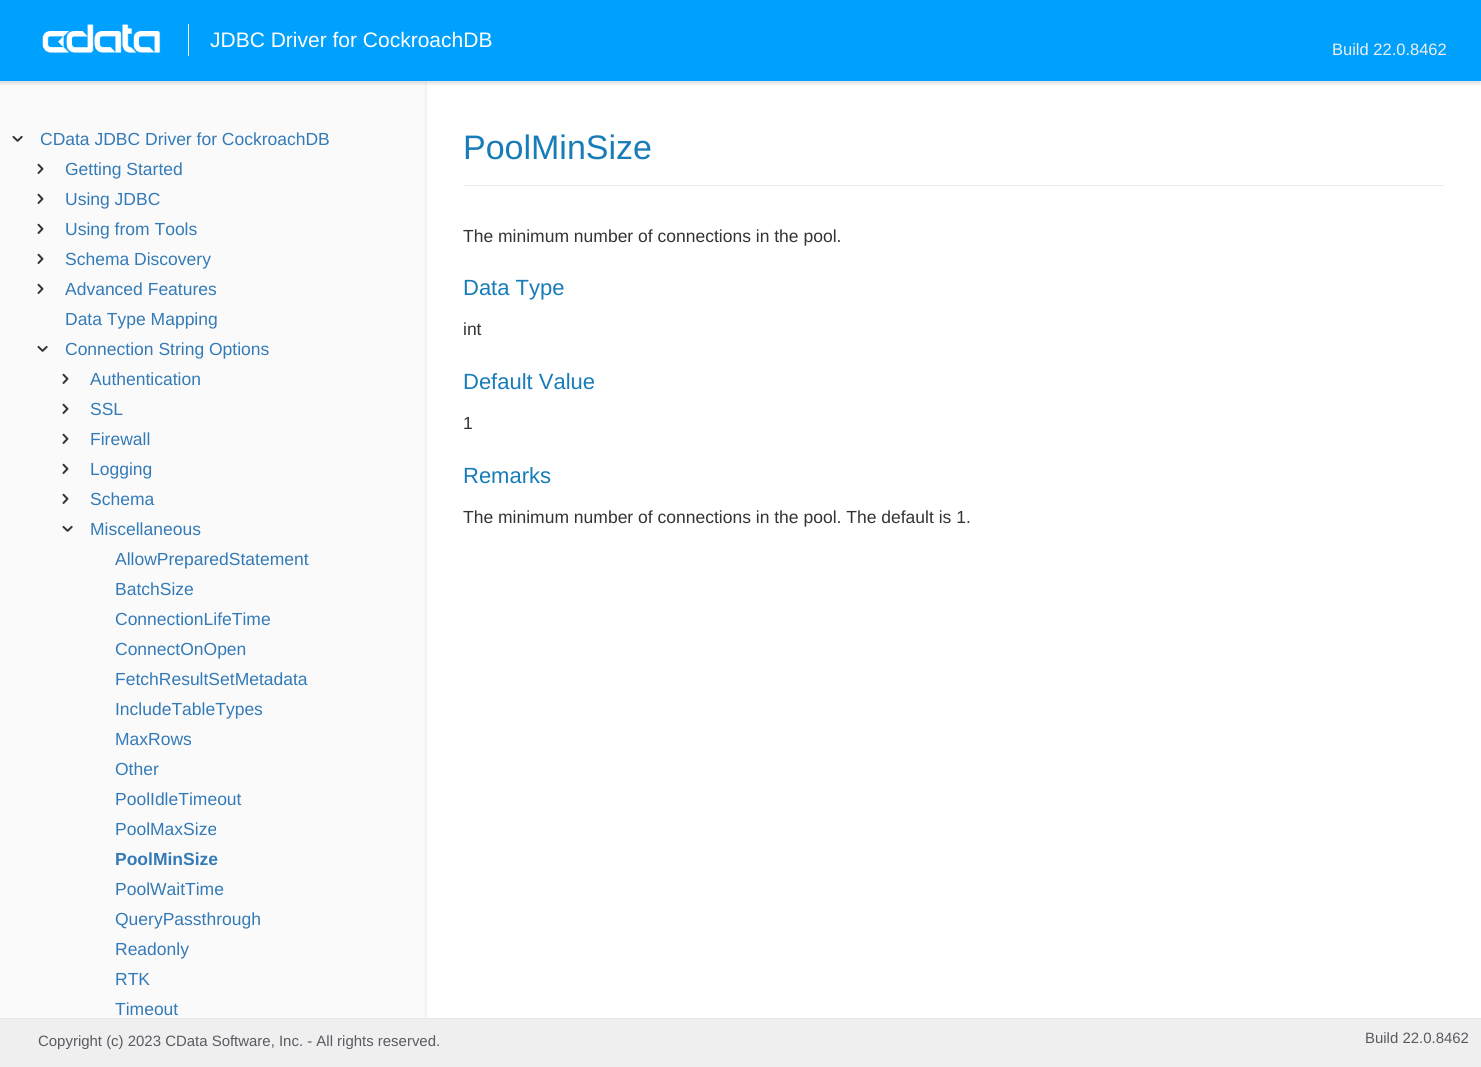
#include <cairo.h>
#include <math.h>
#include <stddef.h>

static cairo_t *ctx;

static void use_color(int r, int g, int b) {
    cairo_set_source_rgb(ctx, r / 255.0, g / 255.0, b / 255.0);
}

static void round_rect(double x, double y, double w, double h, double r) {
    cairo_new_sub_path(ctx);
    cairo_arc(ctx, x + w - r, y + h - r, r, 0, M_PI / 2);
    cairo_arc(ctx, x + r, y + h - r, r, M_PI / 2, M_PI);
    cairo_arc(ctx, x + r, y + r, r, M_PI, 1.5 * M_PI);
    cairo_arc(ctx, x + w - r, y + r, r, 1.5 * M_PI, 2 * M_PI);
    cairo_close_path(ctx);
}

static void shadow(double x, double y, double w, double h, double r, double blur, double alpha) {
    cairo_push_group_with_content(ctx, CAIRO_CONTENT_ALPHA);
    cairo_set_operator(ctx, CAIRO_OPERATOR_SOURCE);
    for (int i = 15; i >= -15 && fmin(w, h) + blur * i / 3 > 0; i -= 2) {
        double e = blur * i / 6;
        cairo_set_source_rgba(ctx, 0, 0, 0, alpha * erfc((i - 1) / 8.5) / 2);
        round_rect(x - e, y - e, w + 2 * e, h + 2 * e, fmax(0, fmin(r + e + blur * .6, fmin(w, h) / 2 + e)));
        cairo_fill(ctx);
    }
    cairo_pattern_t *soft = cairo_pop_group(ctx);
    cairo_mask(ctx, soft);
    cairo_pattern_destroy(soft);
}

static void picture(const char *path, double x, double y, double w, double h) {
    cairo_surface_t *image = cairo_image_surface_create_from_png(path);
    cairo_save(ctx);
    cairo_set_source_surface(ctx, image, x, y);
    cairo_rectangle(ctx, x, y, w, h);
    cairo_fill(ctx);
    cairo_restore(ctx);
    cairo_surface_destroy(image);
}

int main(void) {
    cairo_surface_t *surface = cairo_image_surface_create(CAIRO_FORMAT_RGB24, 1481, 1067);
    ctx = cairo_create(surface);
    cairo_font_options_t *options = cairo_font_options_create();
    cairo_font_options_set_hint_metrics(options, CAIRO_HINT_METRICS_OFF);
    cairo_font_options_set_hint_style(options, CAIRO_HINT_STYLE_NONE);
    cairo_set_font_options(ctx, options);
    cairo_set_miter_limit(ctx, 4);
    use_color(255, 255, 255);
    cairo_paint(ctx);
    use_color(0, 0, 0);
    shadow(0, 83, 425, 936, 0, 2, 0.15);
    use_color(250, 250, 250);
    cairo_rectangle(ctx, 0, 81, 425, 937);
    cairo_fill(ctx);
    use_color(0, 0, 0);
    shadow(0, 3, 1481, 81, 0, 1, 0.1);
    use_color(0, 160, 255);
    cairo_rectangle(ctx, 0, 0, 1481, 81);
    cairo_fill(ctx);
    picture("img1.png", 42, 24, 119, 29);
    use_color(255, 255, 255);
    cairo_rectangle(ctx, 188, 24, 1, 32);
    cairo_fill(ctx);
    cairo_select_font_face(ctx, "Liberation Sans", CAIRO_FONT_SLANT_NORMAL, CAIRO_FONT_WEIGHT_NORMAL);
    cairo_set_font_size(ctx, 21);
    cairo_move_to(ctx, 210, 47);
    cairo_show_text(ctx, "JDBC Driver for CockroachDB");
    cairo_set_font_size(ctx, 16.5);
    use_color(239, 239, 239);
    cairo_move_to(ctx, 1332, 55);
    cairo_show_text(ctx, "Build 22.0.8462");
    picture("img2.png", 12, 135, 11, 7);
    cairo_set_font_size(ctx, 17.5);
    use_color(51, 122, 183);
    cairo_move_to(ctx, 40, 145);
    cairo_show_text(ctx, "CData JDBC Driver for CockroachDB");
    picture("img3.png", 37, 163, 7, 11);
    cairo_move_to(ctx, 65, 175);
    cairo_show_text(ctx, "Getting Started");
    picture("img3.png", 37, 193, 7, 11);
    cairo_move_to(ctx, 65, 205);
    cairo_show_text(ctx, "Using JDBC");
    picture("img3.png", 37, 223, 7, 11);
    cairo_move_to(ctx, 65, 235);
    cairo_show_text(ctx, "Using from Tools");
    picture("img3.png", 37, 253, 7, 11);
    cairo_move_to(ctx, 65, 265);
    cairo_show_text(ctx, "Schema Discovery");
    picture("img3.png", 37, 283, 7, 11);
    cairo_move_to(ctx, 65, 295);
    cairo_show_text(ctx, "Advanced Features");
    cairo_move_to(ctx, 65, 325);
    cairo_show_text(ctx, "Data Type Mapping");
    picture("img2.png", 37, 345, 11, 7);
    cairo_move_to(ctx, 65, 355);
    cairo_show_text(ctx, "Connection String Options");
    picture("img3.png", 62, 373, 7, 11);
    cairo_move_to(ctx, 90, 385);
    cairo_show_text(ctx, "Authentication");
    picture("img3.png", 62, 403, 7, 11);
    cairo_move_to(ctx, 90, 415);
    cairo_show_text(ctx, "SSL");
    picture("img3.png", 62, 433, 7, 11);
    cairo_move_to(ctx, 90, 445);
    cairo_show_text(ctx, "Firewall");
    picture("img3.png", 62, 463, 7, 11);
    cairo_move_to(ctx, 90, 475);
    cairo_show_text(ctx, "Logging");
    picture("img3.png", 62, 493, 7, 11);
    cairo_move_to(ctx, 90, 505);
    cairo_show_text(ctx, "Schema");
    picture("img2.png", 62, 525, 11, 7);
    cairo_move_to(ctx, 90, 535);
    cairo_show_text(ctx, "Miscellaneous");
    cairo_move_to(ctx, 115, 565);
    cairo_show_text(ctx, "AllowPreparedStatement");
    cairo_move_to(ctx, 115, 595);
    cairo_show_text(ctx, "BatchSize");
    cairo_move_to(ctx, 115, 625);
    cairo_show_text(ctx, "ConnectionLifeTime");
    cairo_move_to(ctx, 115, 655);
    cairo_show_text(ctx, "ConnectOnOpen");
    cairo_move_to(ctx, 115, 685);
    cairo_show_text(ctx, "FetchResultSetMetadata");
    cairo_move_to(ctx, 115, 715);
    cairo_show_text(ctx, "IncludeTableTypes");
    cairo_move_to(ctx, 115, 745);
    cairo_show_text(ctx, "MaxRows");
    cairo_move_to(ctx, 115, 775);
    cairo_show_text(ctx, "Other");
    cairo_move_to(ctx, 115, 805);
    cairo_show_text(ctx, "PoolIdleTimeout");
    cairo_move_to(ctx, 115, 835);
    cairo_show_text(ctx, "PoolMaxSize");
    cairo_select_font_face(ctx, "Liberation Sans", CAIRO_FONT_SLANT_NORMAL, CAIRO_FONT_WEIGHT_BOLD);
    cairo_move_to(ctx, 115, 865);
    cairo_show_text(ctx, "PoolMinSize");
    cairo_select_font_face(ctx, "Liberation Sans", CAIRO_FONT_SLANT_NORMAL, CAIRO_FONT_WEIGHT_NORMAL);
    cairo_move_to(ctx, 115, 895);
    cairo_show_text(ctx, "PoolWaitTime");
    cairo_move_to(ctx, 115, 925);
    cairo_show_text(ctx, "QueryPassthrough");
    cairo_move_to(ctx, 115, 955);
    cairo_show_text(ctx, "Readonly");
    cairo_move_to(ctx, 115, 985);
    cairo_show_text(ctx, "RTK");
    cairo_move_to(ctx, 115, 1015);
    cairo_show_text(ctx, "Timeout");
    use_color(238, 235, 238);
    cairo_rectangle(ctx, 463, 185, 981, 1);
    cairo_fill(ctx);
    cairo_set_font_size(ctx, 34);
    use_color(23, 124, 184);
    cairo_move_to(ctx, 463, 159);
    cairo_show_text(ctx, "PoolMinSize");
    cairo_set_font_size(ctx, 17.5);
    use_color(51, 51, 51);
    cairo_move_to(ctx, 463, 242);
    cairo_show_text(ctx, "The minimum number of connections in the pool.");
    cairo_set_font_size(ctx, 22);
    use_color(23, 124, 184);
    cairo_move_to(ctx, 463, 295);
    cairo_show_text(ctx, "Data Type");
    cairo_set_font_size(ctx, 17.5);
    use_color(51, 51, 51);
    cairo_move_to(ctx, 463, 335);
    cairo_show_text(ctx, "int");
    cairo_set_font_size(ctx, 22);
    use_color(23, 124, 184);
    cairo_move_to(ctx, 463, 389);
    cairo_show_text(ctx, "Default Value");
    cairo_set_font_size(ctx, 17.5);
    use_color(51, 51, 51);
    cairo_move_to(ctx, 463, 429);
    cairo_show_text(ctx, "1");
    cairo_set_font_size(ctx, 22);
    use_color(23, 124, 184);
    cairo_move_to(ctx, 463, 483);
    cairo_show_text(ctx, "Remarks");
    cairo_set_font_size(ctx, 17.5);
    use_color(51, 51, 51);
    cairo_move_to(ctx, 463, 523);
    cairo_show_text(ctx, "The minimum number of connections in the pool. The default is 1.");
    use_color(239, 239, 239);
    cairo_rectangle(ctx, 0, 1019, 1481, 48);
    cairo_fill(ctx);
    use_color(232, 232, 232);
    cairo_rectangle(ctx, 0, 1018, 1481, 1);
    cairo_fill(ctx);
    cairo_set_font_size(ctx, 14.95);
    use_color(92, 89, 98);
    cairo_move_to(ctx, 38, 1046);
    cairo_show_text(ctx, "Copyright (c) 2023 CData Software, Inc. - All rights reserved.");
    cairo_move_to(ctx, 1365, 1043);
    cairo_show_text(ctx, "Build 22.0.8462");
    cairo_surface_write_to_png(surface, "result.png");
    cairo_font_options_destroy(options);
    cairo_destroy(ctx);
    cairo_surface_destroy(surface);
    return 0;
}
